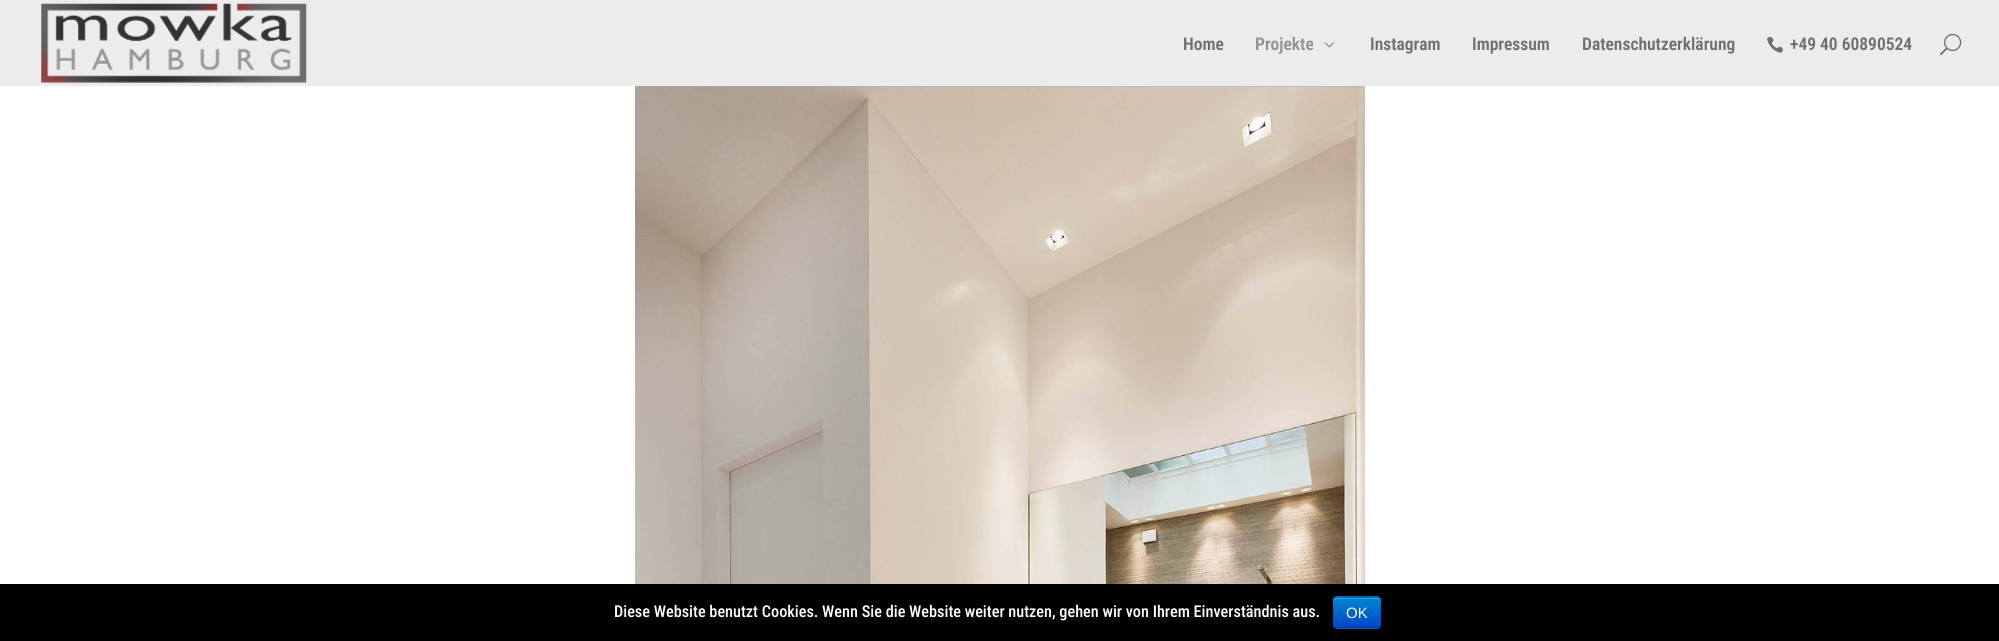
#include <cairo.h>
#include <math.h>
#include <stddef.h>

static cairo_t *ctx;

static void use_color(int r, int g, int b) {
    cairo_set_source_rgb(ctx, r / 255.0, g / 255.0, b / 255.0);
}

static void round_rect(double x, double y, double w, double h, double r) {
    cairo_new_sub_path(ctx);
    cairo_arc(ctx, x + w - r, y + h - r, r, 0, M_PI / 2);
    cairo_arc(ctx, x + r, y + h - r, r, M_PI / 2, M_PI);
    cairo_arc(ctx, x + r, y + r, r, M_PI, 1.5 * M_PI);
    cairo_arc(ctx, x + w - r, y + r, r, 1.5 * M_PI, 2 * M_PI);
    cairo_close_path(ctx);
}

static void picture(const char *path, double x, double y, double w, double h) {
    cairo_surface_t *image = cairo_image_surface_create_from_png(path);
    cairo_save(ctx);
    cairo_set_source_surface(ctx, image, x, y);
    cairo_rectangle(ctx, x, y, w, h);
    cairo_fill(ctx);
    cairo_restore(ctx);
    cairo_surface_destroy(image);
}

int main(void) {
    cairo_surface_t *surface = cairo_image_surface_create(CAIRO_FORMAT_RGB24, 1999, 641);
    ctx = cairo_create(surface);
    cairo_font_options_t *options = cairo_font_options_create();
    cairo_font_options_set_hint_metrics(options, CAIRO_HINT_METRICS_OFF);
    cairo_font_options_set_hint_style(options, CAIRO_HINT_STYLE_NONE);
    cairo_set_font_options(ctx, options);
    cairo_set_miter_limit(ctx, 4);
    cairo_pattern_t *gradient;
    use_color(255, 255, 255);
    cairo_paint(ctx);
    use_color(236, 236, 236);
    cairo_rectangle(ctx, 0, 0, 1999, 86);
    cairo_fill(ctx);
    picture("img1.png", 41, 3, 266, 80);
    cairo_select_font_face(ctx, "Roboto Condensed SemiBold", CAIRO_FONT_SLANT_NORMAL, CAIRO_FONT_WEIGHT_NORMAL);
    cairo_set_font_size(ctx, 17.5);
    use_color(111, 111, 111);
    cairo_move_to(ctx, 1183, 50);
    cairo_show_text(ctx, "Home");
    use_color(145, 145, 145);
    cairo_move_to(ctx, 1255, 50);
    cairo_show_text(ctx, "Projekte");
    picture("img2.png", 1324, 42, 10, 6);
    use_color(111, 111, 111);
    cairo_move_to(ctx, 1370, 50);
    cairo_show_text(ctx, "Instagram");
    cairo_move_to(ctx, 1472, 50);
    cairo_show_text(ctx, "Impressum");
    cairo_move_to(ctx, 1582, 50);
    cairo_show_text(ctx, "Datenschutzerklärung");
    picture("img3.png", 1767, 36, 16, 17);
    cairo_move_to(ctx, 1790, 50);
    cairo_show_text(ctx, "+49 40 60890524");
    picture("img4.png", 1940, 33, 22, 23);
    use_color(126, 190, 197);
    cairo_rectangle(ctx, 635, 86, 730, 1);
    cairo_fill(ctx);
    picture("img5.png", 635, 86, 730, 498);
    use_color(0, 0, 0);
    cairo_rectangle(ctx, 0, 584, 1999, 57);
    cairo_fill(ctx);
    cairo_select_font_face(ctx, "Roboto Condensed Medium", CAIRO_FONT_SLANT_NORMAL, CAIRO_FONT_WEIGHT_NORMAL);
    cairo_set_font_size(ctx, 16.25);
    use_color(255, 255, 255);
    cairo_move_to(ctx, 614, 617);
    cairo_show_text(ctx, "Diese Website benutzt Cookies. Wenn Sie die Website weiter nutzen, gehen wir von Ihrem Einverständnis aus.");
    use_color(0, 109, 204);
    round_rect(1333, 596, 48, 33, 4);
    cairo_fill(ctx);
    cairo_save(ctx);
    round_rect(1333, 596, 48, 33, 4);
    cairo_clip(ctx);
    gradient = cairo_pattern_create_linear(1357, 598, 1357, 628);
    cairo_pattern_add_color_stop_rgba(gradient, 0, 0, 0.533, 0.8, 1);
    cairo_pattern_add_color_stop_rgba(gradient, 1, 0, 0.267, 0.8, 1);
    cairo_set_source(ctx, gradient);
    cairo_pattern_destroy(gradient);
    cairo_rectangle(ctx, 1333, 598, 48, 30);
    cairo_fill(ctx);
    cairo_restore(ctx);
    use_color(51, 159, 214);
    cairo_new_path(ctx);
    cairo_move_to(ctx, 1336, 599);
    cairo_line_to(ctx, 1378, 599);
    cairo_curve_to(ctx, 1379, 599, 1380, 600, 1380, 601);
    cairo_curve_to(ctx, 1380, 596, 1373, 598, 1371, 598);
    cairo_line_to(ctx, 1343, 598);
    cairo_curve_to(ctx, 1341, 598, 1334, 596, 1334, 601);
    cairo_curve_to(ctx, 1334, 600, 1335, 599, 1336, 599);
    cairo_close_path(ctx);
    cairo_fill(ctx);
    cairo_new_path(ctx);
    cairo_move_to(ctx, 1379.5, 627);
    cairo_line_to(ctx, 1377.5, 628);
    cairo_line_to(ctx, 1336, 628);
    cairo_line_to(ctx, 1334, 627);
    cairo_set_source_rgba(ctx, 0, 0, 0, 0.25);
    cairo_set_line_width(ctx, 1.2);
    cairo_stroke(ctx);
    cairo_new_path(ctx);
    cairo_move_to(ctx, 1334, 627);
    cairo_curve_to(ctx, 1332, 625, 1333, 615.5, 1333, 612.5);
    cairo_curve_to(ctx, 1333, 597.5, 1329.5, 597, 1343, 597);
    cairo_line_to(ctx, 1370.5, 597);
    cairo_curve_to(ctx, 1384, 597, 1380.5, 597.5, 1380.5, 612.5);
    cairo_curve_to(ctx, 1380.5, 615.5, 1382, 625, 1379.5, 627);
    cairo_set_source_rgba(ctx, 0, 0, 0, 0.1);
    cairo_stroke(ctx);
    cairo_select_font_face(ctx, "Liberation Sans", CAIRO_FONT_SLANT_NORMAL, CAIRO_FONT_WEIGHT_NORMAL);
    cairo_set_font_size(ctx, 15);
    use_color(255, 255, 255);
    cairo_move_to(ctx, 1346, 618);
    cairo_show_text(ctx, "OK");
    cairo_surface_write_to_png(surface, "result.png");
    cairo_font_options_destroy(options);
    cairo_destroy(ctx);
    cairo_surface_destroy(surface);
    return 0;
}
